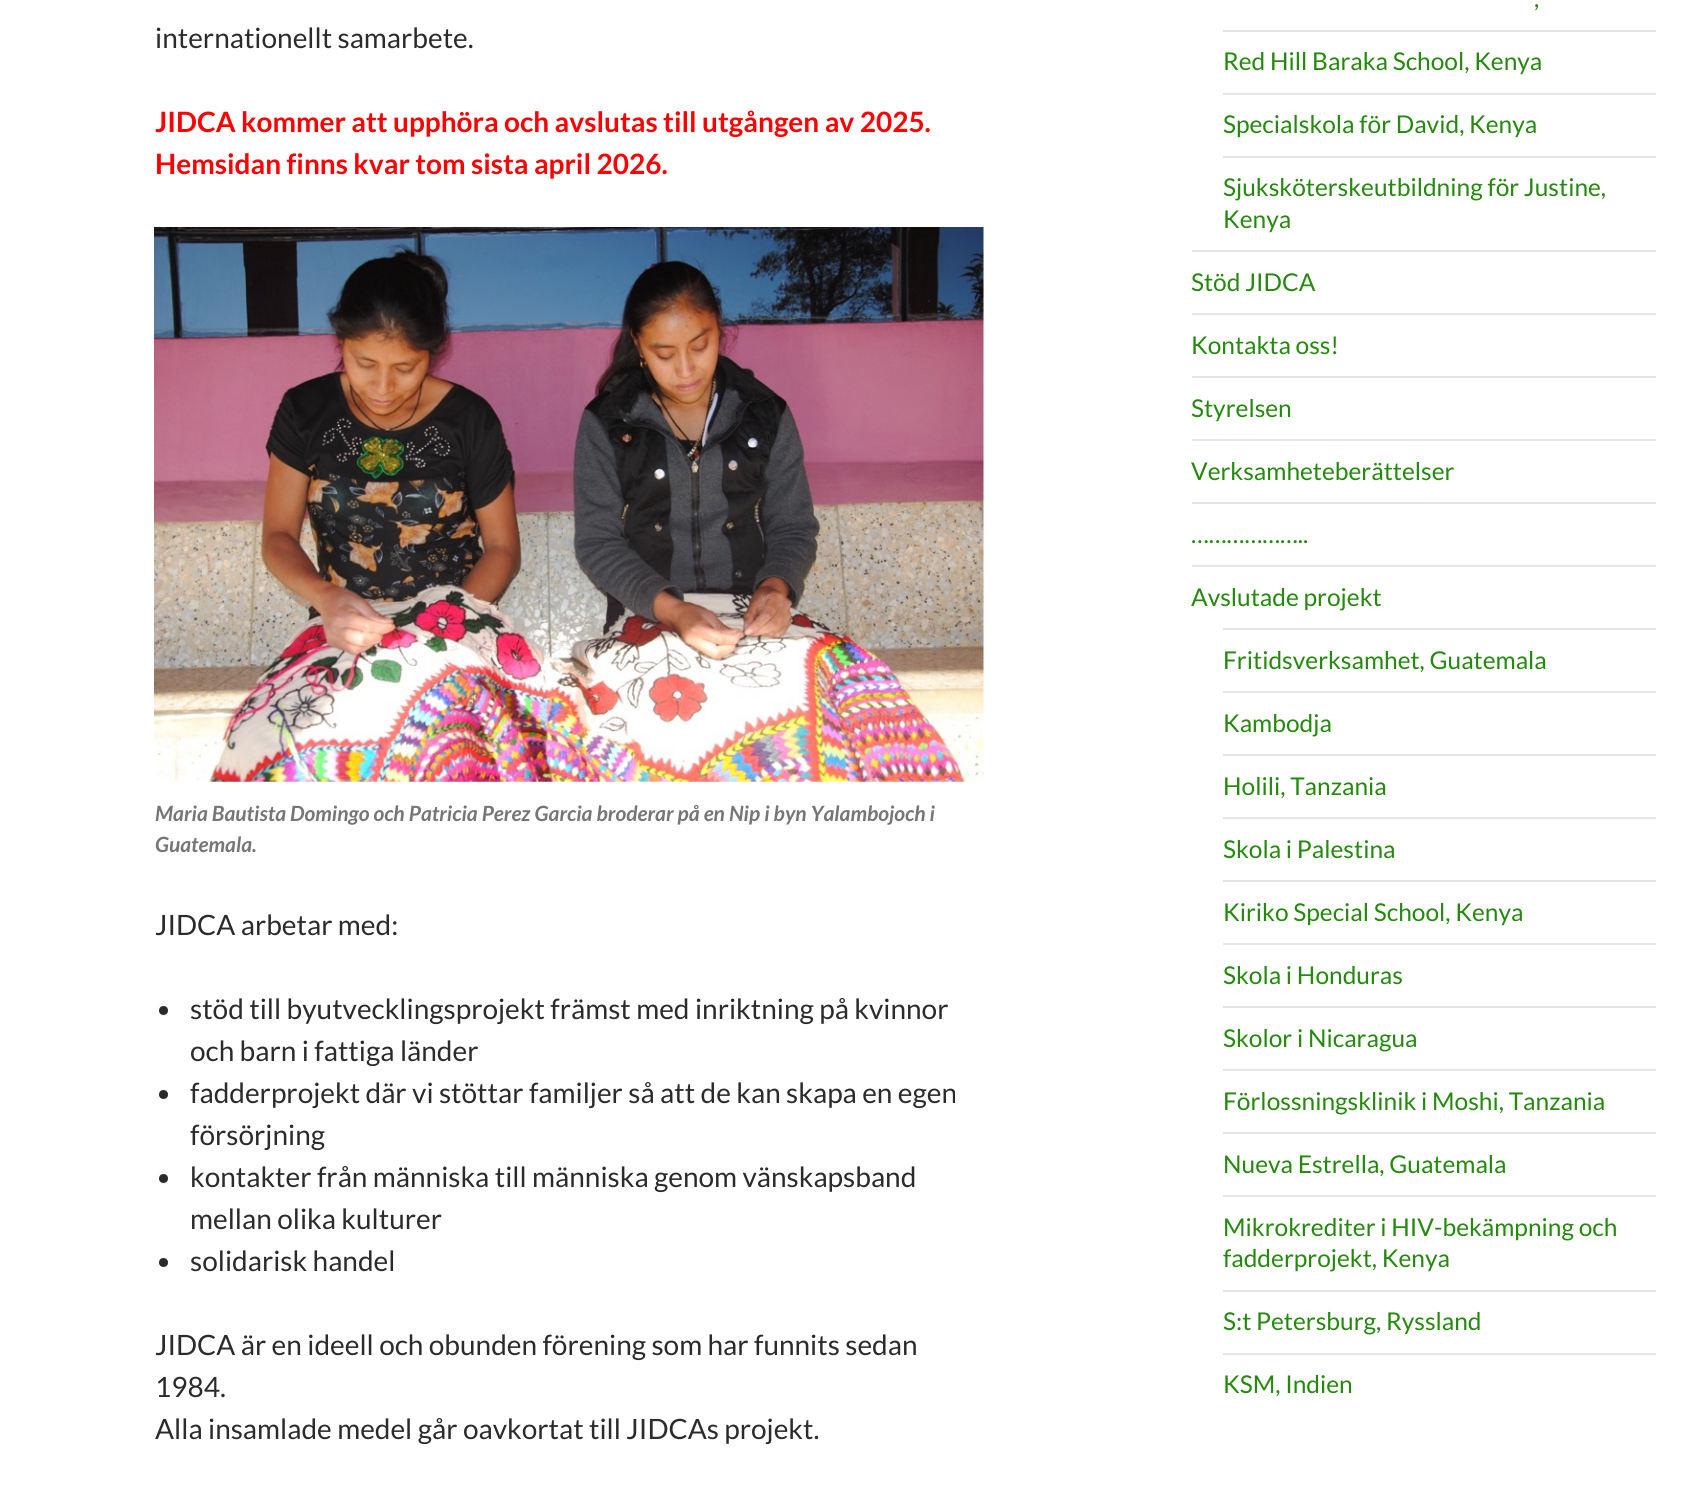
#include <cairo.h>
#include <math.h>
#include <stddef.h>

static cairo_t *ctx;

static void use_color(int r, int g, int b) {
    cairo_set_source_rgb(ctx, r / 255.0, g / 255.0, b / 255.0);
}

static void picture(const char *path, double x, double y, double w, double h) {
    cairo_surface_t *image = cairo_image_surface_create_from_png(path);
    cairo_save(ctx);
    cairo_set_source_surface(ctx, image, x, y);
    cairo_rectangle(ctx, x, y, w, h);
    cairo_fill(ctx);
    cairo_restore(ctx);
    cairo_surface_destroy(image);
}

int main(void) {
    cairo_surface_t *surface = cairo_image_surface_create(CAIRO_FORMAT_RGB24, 1707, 1490);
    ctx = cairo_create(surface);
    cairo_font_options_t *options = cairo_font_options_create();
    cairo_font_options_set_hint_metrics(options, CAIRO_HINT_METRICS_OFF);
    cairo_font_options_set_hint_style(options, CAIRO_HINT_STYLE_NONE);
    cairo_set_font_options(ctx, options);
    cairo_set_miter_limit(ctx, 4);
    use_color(255, 255, 255);
    cairo_paint(ctx);
    cairo_select_font_face(ctx, "Lato", CAIRO_FONT_SLANT_NORMAL, CAIRO_FONT_WEIGHT_NORMAL);
    cairo_set_font_size(ctx, 28);
    use_color(43, 43, 43);
    cairo_move_to(ctx, 155, 48);
    cairo_show_text(ctx, "internationellt samarbete.");
    cairo_select_font_face(ctx, "Lato", CAIRO_FONT_SLANT_NORMAL, CAIRO_FONT_WEIGHT_BOLD);
    use_color(255, 0, 0);
    cairo_move_to(ctx, 155, 132);
    cairo_show_text(ctx, "JIDCA kommer att upphöra och avslutas till utgången av 2025.");
    cairo_move_to(ctx, 155, 174);
    cairo_show_text(ctx, "Hemsidan finns kvar tom sista april 2026.");
    picture("img1.png", 154, 227, 830, 555);
    cairo_select_font_face(ctx, "Lato", CAIRO_FONT_SLANT_ITALIC, CAIRO_FONT_WEIGHT_BOLD);
    cairo_set_font_size(ctx, 21);
    use_color(118, 118, 118);
    cairo_move_to(ctx, 155, 821);
    cairo_show_text(ctx, "Maria Bautista Domingo och Patricia Perez Garcia broderar på en Nip i byn Yalambojoch i");
    cairo_move_to(ctx, 155, 852);
    cairo_show_text(ctx, "Guatemala.");
    cairo_select_font_face(ctx, "Lato", CAIRO_FONT_SLANT_NORMAL, CAIRO_FONT_WEIGHT_NORMAL);
    cairo_set_font_size(ctx, 28);
    use_color(43, 43, 43);
    cairo_move_to(ctx, 155, 935);
    cairo_show_text(ctx, "JIDCA arbetar med:");
    cairo_new_path(ctx);
    cairo_arc(ctx, 163.5, 1010.5, 4.5, 0, 2 * M_PI);
    cairo_fill(ctx);
    cairo_move_to(ctx, 190, 1019);
    cairo_show_text(ctx, "stöd till byutvecklingsprojekt främst med inriktning på kvinnor");
    cairo_move_to(ctx, 190, 1061);
    cairo_show_text(ctx, "och barn i fattiga länder");
    cairo_new_path(ctx);
    cairo_arc(ctx, 163.5, 1094.5, 4.5, 0, 2 * M_PI);
    cairo_fill(ctx);
    cairo_move_to(ctx, 190, 1103);
    cairo_show_text(ctx, "fadderprojekt där vi stöttar familjer så att de kan skapa en egen");
    cairo_move_to(ctx, 190, 1145);
    cairo_show_text(ctx, "försörjning");
    cairo_new_path(ctx);
    cairo_arc(ctx, 163.5, 1178.5, 4.5, 0, 2 * M_PI);
    cairo_fill(ctx);
    cairo_move_to(ctx, 190, 1187);
    cairo_show_text(ctx, "kontakter från människa till människa genom vänskapsband");
    cairo_move_to(ctx, 190, 1229);
    cairo_show_text(ctx, "mellan olika kulturer");
    cairo_new_path(ctx);
    cairo_arc(ctx, 163.5, 1262.5, 4.5, 0, 2 * M_PI);
    cairo_fill(ctx);
    cairo_move_to(ctx, 190, 1271);
    cairo_show_text(ctx, "solidarisk handel");
    cairo_move_to(ctx, 155, 1355);
    cairo_show_text(ctx, "JIDCA är en ideell och obunden förening som har funnits sedan");
    cairo_move_to(ctx, 155, 1397);
    cairo_show_text(ctx, "1984.");
    cairo_move_to(ctx, 155, 1439);
    cairo_show_text(ctx, "Alla insamlade medel går oavkortat till JIDCAs projekt.");
    cairo_set_font_size(ctx, 24.5);
    use_color(36, 137, 13);
    cairo_move_to(ctx, 1534, 7);
    cairo_show_text(ctx, ",");
    use_color(230, 230, 230);
    cairo_rectangle(ctx, 1223, 30, 433, 2);
    cairo_fill(ctx);
    use_color(36, 137, 13);
    cairo_move_to(ctx, 1223, 70);
    cairo_show_text(ctx, "Red Hill Baraka School, Kenya");
    use_color(230, 230, 230);
    cairo_rectangle(ctx, 1223, 93, 433, 2);
    cairo_fill(ctx);
    use_color(36, 137, 13);
    cairo_move_to(ctx, 1223, 133);
    cairo_show_text(ctx, "Specialskola för David, Kenya");
    use_color(230, 230, 230);
    cairo_rectangle(ctx, 1223, 156, 433, 2);
    cairo_fill(ctx);
    use_color(36, 137, 13);
    cairo_move_to(ctx, 1223, 196);
    cairo_show_text(ctx, "Sjuksköterskeutbildning för Justine,");
    cairo_move_to(ctx, 1223, 228);
    cairo_show_text(ctx, "Kenya");
    use_color(230, 230, 230);
    cairo_rectangle(ctx, 1192, 250, 464, 2);
    cairo_fill(ctx);
    use_color(36, 137, 13);
    cairo_move_to(ctx, 1191, 291);
    cairo_show_text(ctx, "Stöd JIDCA");
    use_color(230, 230, 230);
    cairo_rectangle(ctx, 1192, 313, 464, 2);
    cairo_fill(ctx);
    use_color(36, 137, 13);
    cairo_move_to(ctx, 1191, 354);
    cairo_show_text(ctx, "Kontakta oss!");
    use_color(230, 230, 230);
    cairo_rectangle(ctx, 1192, 376, 464, 2);
    cairo_fill(ctx);
    use_color(36, 137, 13);
    cairo_move_to(ctx, 1191, 417);
    cairo_show_text(ctx, "Styrelsen");
    use_color(230, 230, 230);
    cairo_rectangle(ctx, 1192, 439, 464, 2);
    cairo_fill(ctx);
    use_color(36, 137, 13);
    cairo_move_to(ctx, 1191, 480);
    cairo_show_text(ctx, "Verksamheteberättelser");
    use_color(230, 230, 230);
    cairo_rectangle(ctx, 1192, 502, 464, 2);
    cairo_fill(ctx);
    use_color(36, 137, 13);
    cairo_move_to(ctx, 1191, 543);
    cairo_show_text(ctx, "………………..");
    use_color(230, 230, 230);
    cairo_rectangle(ctx, 1192, 565, 464, 2);
    cairo_fill(ctx);
    use_color(36, 137, 13);
    cairo_move_to(ctx, 1191, 606);
    cairo_show_text(ctx, "Avslutade projekt");
    use_color(230, 230, 230);
    cairo_rectangle(ctx, 1223, 628, 433, 2);
    cairo_fill(ctx);
    use_color(36, 137, 13);
    cairo_move_to(ctx, 1223, 669);
    cairo_show_text(ctx, "Fritidsverksamhet, Guatemala");
    use_color(230, 230, 230);
    cairo_rectangle(ctx, 1223, 691, 433, 2);
    cairo_fill(ctx);
    use_color(36, 137, 13);
    cairo_move_to(ctx, 1223, 732);
    cairo_show_text(ctx, "Kambodja");
    use_color(230, 230, 230);
    cairo_rectangle(ctx, 1223, 754, 433, 2);
    cairo_fill(ctx);
    use_color(36, 137, 13);
    cairo_move_to(ctx, 1223, 795);
    cairo_show_text(ctx, "Holili, Tanzania");
    use_color(230, 230, 230);
    cairo_rectangle(ctx, 1223, 817, 433, 2);
    cairo_fill(ctx);
    use_color(36, 137, 13);
    cairo_move_to(ctx, 1223, 858);
    cairo_show_text(ctx, "Skola i Palestina");
    use_color(230, 230, 230);
    cairo_rectangle(ctx, 1223, 880, 433, 2);
    cairo_fill(ctx);
    use_color(36, 137, 13);
    cairo_move_to(ctx, 1223, 921);
    cairo_show_text(ctx, "Kiriko Special School, Kenya");
    use_color(230, 230, 230);
    cairo_rectangle(ctx, 1223, 943, 433, 2);
    cairo_fill(ctx);
    use_color(36, 137, 13);
    cairo_move_to(ctx, 1223, 984);
    cairo_show_text(ctx, "Skola i Honduras");
    use_color(230, 230, 230);
    cairo_rectangle(ctx, 1223, 1006, 433, 2);
    cairo_fill(ctx);
    use_color(36, 137, 13);
    cairo_move_to(ctx, 1223, 1047);
    cairo_show_text(ctx, "Skolor i Nicaragua");
    use_color(230, 230, 230);
    cairo_rectangle(ctx, 1223, 1069, 433, 2);
    cairo_fill(ctx);
    use_color(36, 137, 13);
    cairo_move_to(ctx, 1223, 1110);
    cairo_show_text(ctx, "Förlossningsklinik i Moshi, Tanzania");
    use_color(230, 230, 230);
    cairo_rectangle(ctx, 1223, 1132, 433, 2);
    cairo_fill(ctx);
    use_color(36, 137, 13);
    cairo_move_to(ctx, 1223, 1173);
    cairo_show_text(ctx, "Nueva Estrella, Guatemala");
    use_color(230, 230, 230);
    cairo_rectangle(ctx, 1223, 1195, 433, 2);
    cairo_fill(ctx);
    use_color(36, 137, 13);
    cairo_move_to(ctx, 1223, 1236);
    cairo_show_text(ctx, "Mikrokrediter i HIV-bekämpning och");
    cairo_move_to(ctx, 1223, 1267);
    cairo_show_text(ctx, "fadderprojekt, Kenya");
    use_color(230, 230, 230);
    cairo_rectangle(ctx, 1223, 1290, 433, 2);
    cairo_fill(ctx);
    use_color(36, 137, 13);
    cairo_move_to(ctx, 1223, 1330);
    cairo_show_text(ctx, "S:t Petersburg, Ryssland");
    use_color(230, 230, 230);
    cairo_rectangle(ctx, 1223, 1353, 433, 2);
    cairo_fill(ctx);
    use_color(36, 137, 13);
    cairo_move_to(ctx, 1223, 1393);
    cairo_show_text(ctx, "KSM, Indien");
    cairo_surface_write_to_png(surface, "result.png");
    cairo_font_options_destroy(options);
    cairo_destroy(ctx);
    cairo_surface_destroy(surface);
    return 0;
}
